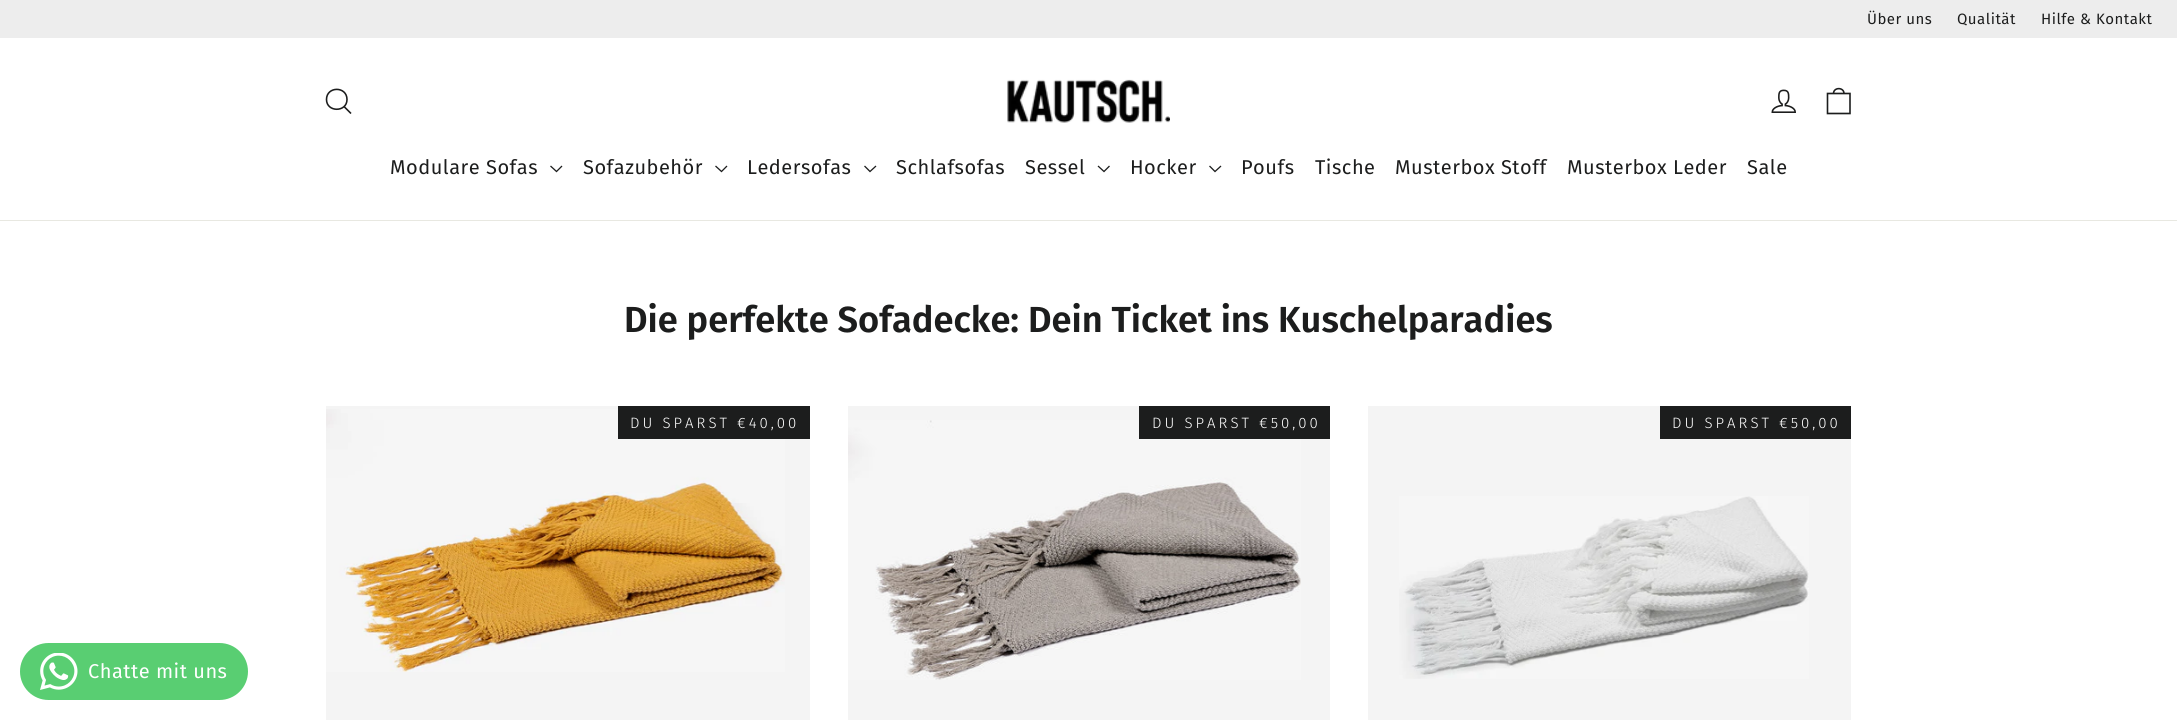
#include <cairo.h>
#include <math.h>
#include <stddef.h>

static cairo_t *ctx;

static void use_color(int r, int g, int b) {
    cairo_set_source_rgb(ctx, r / 255.0, g / 255.0, b / 255.0);
}

static void spaced_text(double x, double y, const char *s, double letter, double word) {
    cairo_move_to(ctx, x, y);
    while (*s) {
        char ch[5] = {0};
        int n = 0;
        do ch[n++] = *s++; while ((*s & 0xC0) == 0x80);
        cairo_show_text(ctx, ch);
        cairo_rel_move_to(ctx, letter + word * (*ch == ' '), 0);
    }
}

static void round_rect(double x, double y, double w, double h, double r) {
    cairo_new_sub_path(ctx);
    cairo_arc(ctx, x + w - r, y + h - r, r, 0, M_PI / 2);
    cairo_arc(ctx, x + r, y + h - r, r, M_PI / 2, M_PI);
    cairo_arc(ctx, x + r, y + r, r, M_PI, 1.5 * M_PI);
    cairo_arc(ctx, x + w - r, y + r, r, 1.5 * M_PI, 2 * M_PI);
    cairo_close_path(ctx);
}

static void picture(const char *path, double x, double y, double w, double h) {
    cairo_surface_t *image = cairo_image_surface_create_from_png(path);
    cairo_save(ctx);
    cairo_set_source_surface(ctx, image, x, y);
    cairo_rectangle(ctx, x, y, w, h);
    cairo_fill(ctx);
    cairo_restore(ctx);
    cairo_surface_destroy(image);
}

int main(void) {
    cairo_surface_t *surface = cairo_image_surface_create(CAIRO_FORMAT_RGB24, 2177, 720);
    ctx = cairo_create(surface);
    cairo_font_options_t *options = cairo_font_options_create();
    cairo_font_options_set_hint_metrics(options, CAIRO_HINT_METRICS_OFF);
    cairo_font_options_set_hint_style(options, CAIRO_HINT_STYLE_NONE);
    cairo_set_font_options(ctx, options);
    cairo_set_miter_limit(ctx, 4);
    use_color(255, 255, 255);
    cairo_paint(ctx);
    use_color(237, 237, 237);
    cairo_rectangle(ctx, 0, 0, 2177, 38);
    cairo_fill(ctx);
    cairo_select_font_face(ctx, "Fira Sans", CAIRO_FONT_SLANT_NORMAL, CAIRO_FONT_WEIGHT_NORMAL);
    cairo_set_font_size(ctx, 15);
    use_color(28, 29, 29);
    spaced_text(1867, 24, "Über uns", 0.5, 0);
    spaced_text(1957, 24, "Qualität", 0.5, 0);
    spaced_text(2041, 24, "Hilfe & Kontakt", 0.5, 0);
    use_color(232, 232, 225);
    cairo_rectangle(ctx, 0, 220, 2177, 1);
    cairo_fill(ctx);
    cairo_new_path(ctx);
    cairo_move_to(ctx, 347, 99.5);
    cairo_curve_to(ctx, 347, 112.5, 326.5, 112.5, 326.5, 99.5);
    cairo_curve_to(ctx, 326.5, 86, 347, 86, 347, 99.5);
    cairo_close_path(ctx);
    cairo_move_to(ctx, 351, 113.5);
    cairo_line_to(ctx, 344, 106.5);
    use_color(28, 29, 29);
    cairo_set_line_width(ctx, 1.6);
    cairo_stroke(ctx);
    picture("img1.png", 1007, 79, 163, 44);
    picture("img2.png", 1771, 89, 25, 24);
    cairo_new_path(ctx);
    cairo_move_to(ctx, 1827.5, 93.5);
    cairo_line_to(ctx, 1850, 93.5);
    cairo_line_to(ctx, 1850, 113.5);
    cairo_line_to(ctx, 1827.5, 113.5);
    cairo_close_path(ctx);
    cairo_move_to(ctx, 1833.5, 93.5);
    cairo_curve_to(ctx, 1833.5, 87, 1844, 87, 1844, 93.5);
    cairo_stroke(ctx);
    cairo_set_font_size(ctx, 20);
    spaced_text(390, 174, "Modulare Sofas", 0.5, 0);
    cairo_new_path(ctx);
    cairo_move_to(ctx, 550.5, 166);
    cairo_line_to(ctx, 556.5, 171.5);
    cairo_line_to(ctx, 562, 166);
    cairo_set_line_width(ctx, 1.3);
    cairo_stroke(ctx);
    spaced_text(583, 174, "Sofazubehör", 0.5, 0);
    cairo_new_path(ctx);
    cairo_move_to(ctx, 715.5, 166);
    cairo_line_to(ctx, 721.5, 171.5);
    cairo_line_to(ctx, 727, 166);
    cairo_stroke(ctx);
    spaced_text(747, 174, "Ledersofas", 0.5, 0);
    cairo_new_path(ctx);
    cairo_move_to(ctx, 864.5, 166);
    cairo_line_to(ctx, 870, 171.5);
    cairo_line_to(ctx, 876, 166);
    cairo_stroke(ctx);
    spaced_text(896, 174, "Schlafsofas", 0.5, 0);
    spaced_text(1025, 174, "Sessel", 0.5, 0);
    cairo_new_path(ctx);
    cairo_move_to(ctx, 1098, 166);
    cairo_line_to(ctx, 1104, 171.5);
    cairo_line_to(ctx, 1109.5, 166);
    cairo_stroke(ctx);
    spaced_text(1130, 174, "Hocker", 0.5, 0);
    cairo_new_path(ctx);
    cairo_move_to(ctx, 1209.5, 166);
    cairo_line_to(ctx, 1215, 171.5);
    cairo_line_to(ctx, 1221, 166);
    cairo_stroke(ctx);
    spaced_text(1241, 174, "Poufs", 0.5, 0);
    spaced_text(1315, 174, "Tische", 0.5, 0);
    spaced_text(1395, 174, "Musterbox Stoff", 0.5, 0);
    spaced_text(1567, 174, "Musterbox Leder", 0.5, 0);
    spaced_text(1747, 174, "Sale", 0.5, 0);
    cairo_select_font_face(ctx, "Fira Sans SemiBold", CAIRO_FONT_SLANT_NORMAL, CAIRO_FONT_WEIGHT_NORMAL);
    cairo_set_font_size(ctx, 36.25);
    cairo_move_to(ctx, 624, 332);
    cairo_show_text(ctx, "Die perfekte Sofadecke: Dein Ticket ins Kuschelparadies");
    use_color(244, 244, 244);
    cairo_rectangle(ctx, 326, 406, 484, 314);
    cairo_fill(ctx);
    picture("img3.png", 326, 409, 459, 263);
    use_color(28, 29, 29);
    cairo_rectangle(ctx, 618, 406, 192, 33);
    cairo_fill(ctx);
    cairo_select_font_face(ctx, "Fira Sans Light", CAIRO_FONT_SLANT_NORMAL, CAIRO_FONT_WEIGHT_NORMAL);
    cairo_set_font_size(ctx, 15);
    use_color(255, 255, 255);
    spaced_text(630, 428, "DU SPARST €40,00", 3, 0);
    use_color(244, 244, 244);
    cairo_rectangle(ctx, 848, 406, 482, 314);
    cairo_fill(ctx);
    picture("img4.png", 848, 420, 453, 260);
    use_color(28, 29, 29);
    cairo_rectangle(ctx, 1139, 406, 191, 33);
    cairo_fill(ctx);
    use_color(255, 255, 255);
    spaced_text(1152, 428, "DU SPARST €50,00", 3, 0);
    use_color(244, 244, 244);
    cairo_rectangle(ctx, 1368, 406, 483, 314);
    cairo_fill(ctx);
    picture("img5.png", 1399, 496, 410, 183);
    use_color(28, 29, 29);
    cairo_rectangle(ctx, 1660, 406, 191, 33);
    cairo_fill(ctx);
    use_color(255, 255, 255);
    spaced_text(1672, 428, "DU SPARST €50,00", 3, 0);
    use_color(89, 206, 114);
    round_rect(20, 643, 228, 57, 28.5);
    cairo_fill(ctx);
    picture("img6.png", 40, 653, 38, 37);
    cairo_select_font_face(ctx, "Fira Sans", CAIRO_FONT_SLANT_NORMAL, CAIRO_FONT_WEIGHT_NORMAL);
    cairo_set_font_size(ctx, 20);
    use_color(255, 255, 255);
    spaced_text(88, 678, "Chatte mit uns", 0.5, 0);
    cairo_surface_write_to_png(surface, "result.png");
    cairo_font_options_destroy(options);
    cairo_destroy(ctx);
    cairo_surface_destroy(surface);
    return 0;
}
